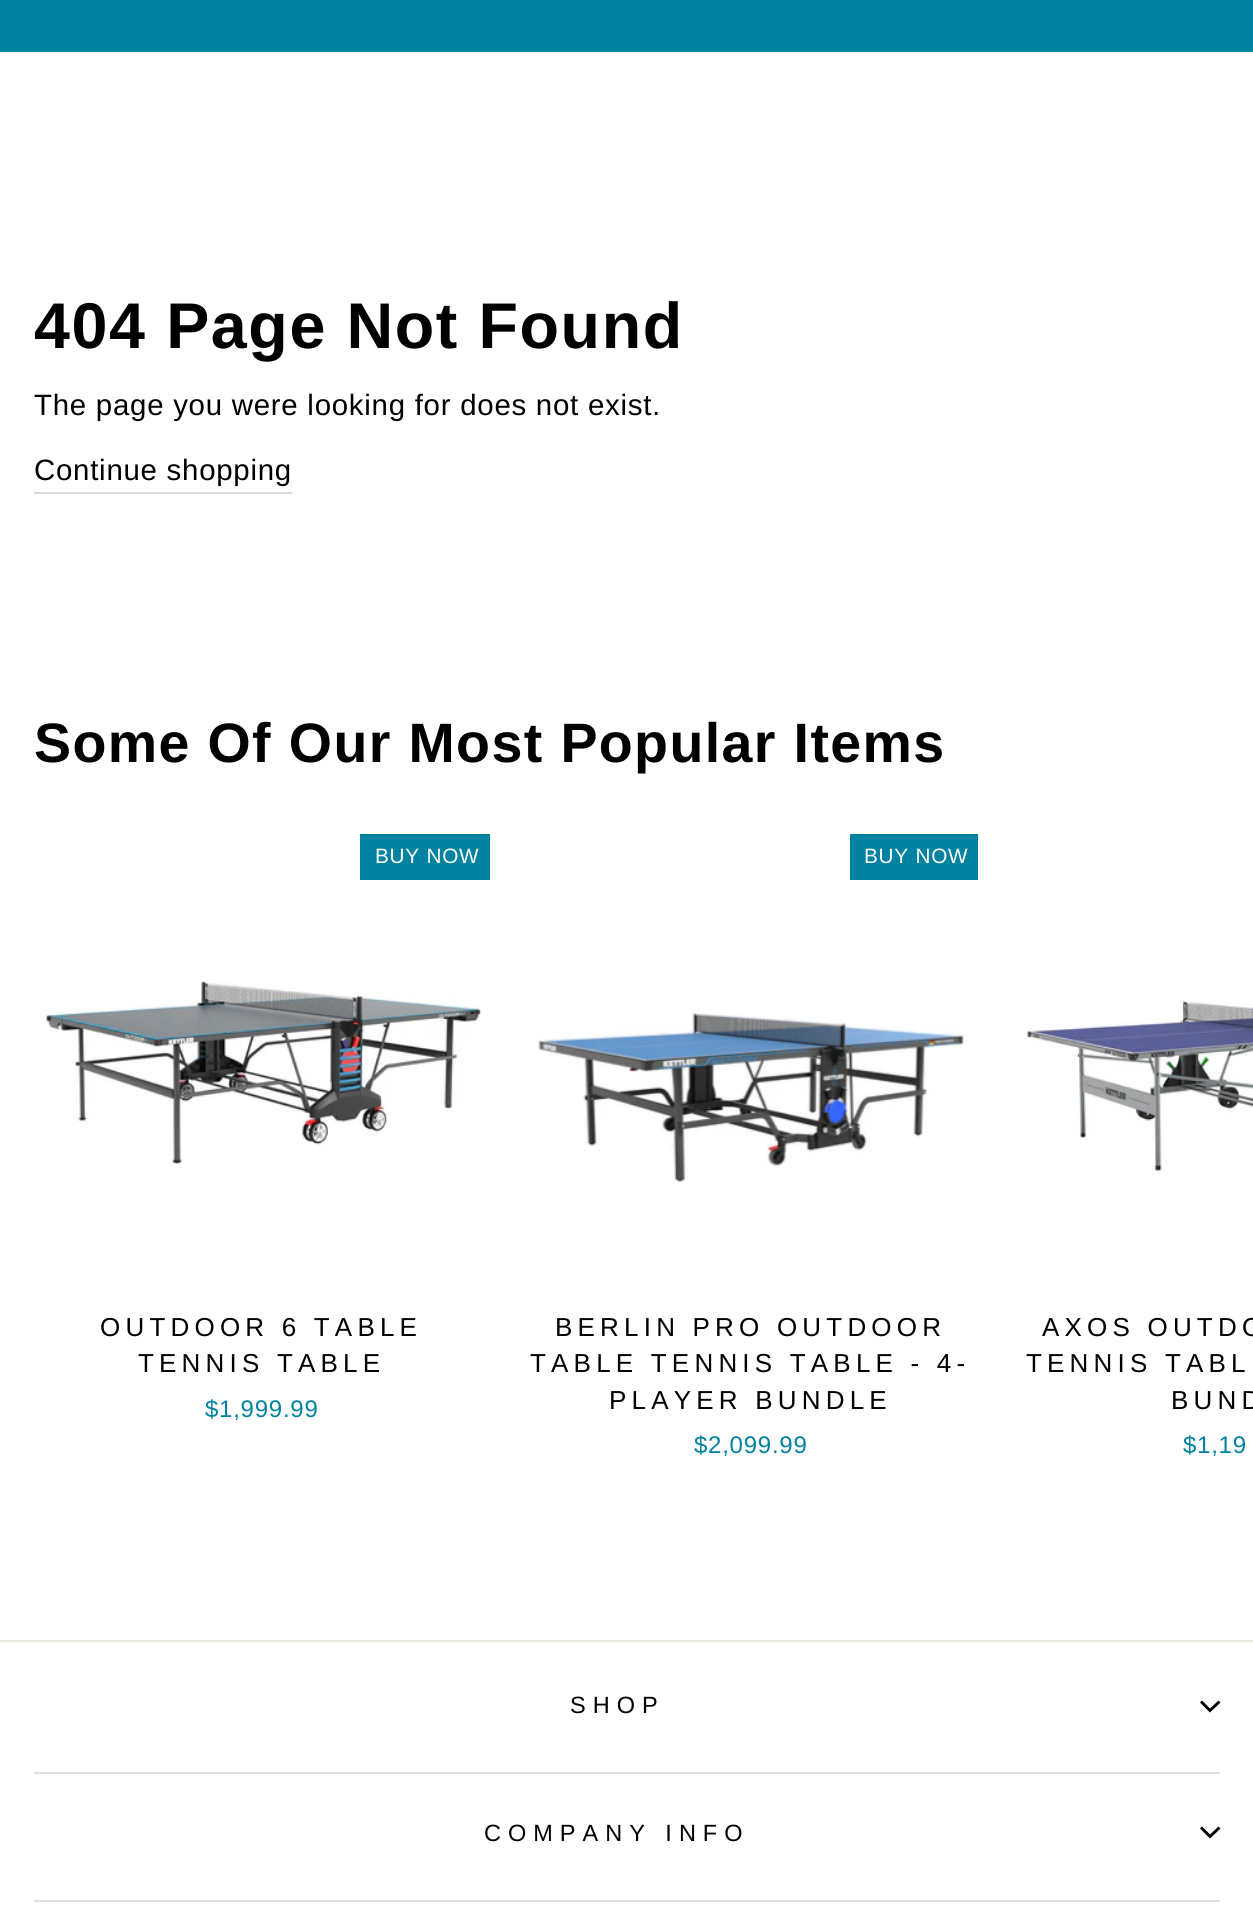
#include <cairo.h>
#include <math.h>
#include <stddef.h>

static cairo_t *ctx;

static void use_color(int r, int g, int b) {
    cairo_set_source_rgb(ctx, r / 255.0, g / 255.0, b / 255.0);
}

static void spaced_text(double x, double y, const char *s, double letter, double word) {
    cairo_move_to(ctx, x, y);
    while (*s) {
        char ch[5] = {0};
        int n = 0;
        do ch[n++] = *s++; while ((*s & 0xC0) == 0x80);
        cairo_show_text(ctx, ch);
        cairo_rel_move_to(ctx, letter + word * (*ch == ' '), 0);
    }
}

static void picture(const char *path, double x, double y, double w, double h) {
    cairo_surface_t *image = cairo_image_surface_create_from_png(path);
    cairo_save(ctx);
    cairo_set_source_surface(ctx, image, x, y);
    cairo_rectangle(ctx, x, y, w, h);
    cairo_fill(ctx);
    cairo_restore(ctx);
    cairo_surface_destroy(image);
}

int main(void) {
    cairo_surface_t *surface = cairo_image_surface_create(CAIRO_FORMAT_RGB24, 1253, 1908);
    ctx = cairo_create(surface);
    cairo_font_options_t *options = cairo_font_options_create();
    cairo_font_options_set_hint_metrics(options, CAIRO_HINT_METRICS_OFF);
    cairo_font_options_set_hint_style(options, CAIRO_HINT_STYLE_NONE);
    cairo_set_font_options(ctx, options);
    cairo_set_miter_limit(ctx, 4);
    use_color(255, 255, 255);
    cairo_paint(ctx);
    use_color(0, 130, 161);
    cairo_rectangle(ctx, 0, 0, 1253, 52);
    cairo_fill(ctx);
    cairo_select_font_face(ctx, "Arimo", CAIRO_FONT_SLANT_NORMAL, CAIRO_FONT_WEIGHT_BOLD);
    cairo_set_font_size(ctx, 64.6);
    use_color(0, 0, 0);
    spaced_text(34, 348, "404 Page Not Found", 1.6, 0);
    cairo_select_font_face(ctx, "Arimo", CAIRO_FONT_SLANT_NORMAL, CAIRO_FONT_WEIGHT_NORMAL);
    cairo_set_font_size(ctx, 29.4);
    spaced_text(34, 415, "The page you were looking for does not exist.", 0.75, 0);
    use_color(217, 217, 217);
    cairo_rectangle(ctx, 34, 492, 258, 2);
    cairo_fill(ctx);
    use_color(0, 0, 0);
    spaced_text(34, 480, "Continue shopping", 0.75, 0);
    cairo_select_font_face(ctx, "Arimo", CAIRO_FONT_SLANT_NORMAL, CAIRO_FONT_WEIGHT_BOLD);
    cairo_set_font_size(ctx, 55.5);
    spaced_text(34, 762, "Some Of Our Most Popular Items", 1.4, 0);
    use_color(0, 130, 161);
    cairo_rectangle(ctx, 360, 834, 130, 46);
    cairo_fill(ctx);
    cairo_select_font_face(ctx, "Arimo", CAIRO_FONT_SLANT_NORMAL, CAIRO_FONT_WEIGHT_NORMAL);
    cairo_set_font_size(ctx, 20.75);
    use_color(255, 255, 255);
    spaced_text(375, 863, "BUY NOW", 0.75, 0);
    picture("img1.png", 44, 981, 441, 183);
    cairo_set_font_size(ctx, 26);
    use_color(0, 0, 0);
    spaced_text(100, 1336, "OUTDOOR 6 TABLE", 5.2, 0);
    spaced_text(138, 1372, "TENNIS TABLE", 5.2, 0);
    cairo_set_font_size(ctx, 24);
    use_color(0, 130, 161);
    spaced_text(205, 1417, "$1,999.99", 0.75, 0);
    cairo_rectangle(ctx, 850, 834, 128, 46);
    cairo_fill(ctx);
    cairo_set_font_size(ctx, 20.75);
    use_color(255, 255, 255);
    spaced_text(864, 863, "BUY NOW", 0.75, 0);
    picture("img2.png", 538, 1012, 426, 171);
    cairo_set_font_size(ctx, 26);
    use_color(0, 0, 0);
    spaced_text(555, 1336, "BERLIN PRO OUTDOOR", 5.2, 0);
    spaced_text(530, 1372, "TABLE TENNIS TABLE - 4-", 5.2, 0);
    spaced_text(609, 1409, "PLAYER BUNDLE", 5.2, 0);
    cairo_set_font_size(ctx, 24);
    use_color(0, 130, 161);
    spaced_text(694, 1453, "$2,099.99", 0.75, 0);
    picture("img3.png", 1027, 1001, 226, 172);
    cairo_set_font_size(ctx, 26);
    use_color(0, 0, 0);
    spaced_text(1042, 1336, "AXOS OUTDO", 5.2, 0);
    spaced_text(1026, 1372, "TENNIS TABL", 5.2, 0);
    spaced_text(1171, 1409, "BUND", 5.2, 0);
    cairo_set_font_size(ctx, 24);
    use_color(0, 130, 161);
    spaced_text(1183, 1453, "$1,19", 0.75, 0);
    use_color(232, 232, 225);
    cairo_rectangle(ctx, 0, 1640, 1253, 2);
    cairo_fill(ctx);
    cairo_set_font_size(ctx, 23.5);
    use_color(0, 0, 0);
    spaced_text(570, 1713, "SHOP", 7, 0);
    cairo_new_path(ctx);
    cairo_move_to(ctx, 1201, 1701.5);
    cairo_line_to(ctx, 1210, 1710.5);
    cairo_line_to(ctx, 1219.5, 1701.5);
    cairo_set_line_width(ctx, 2.9);
    cairo_stroke(ctx);
    use_color(224, 224, 224);
    cairo_rectangle(ctx, 34, 1772, 1186, 2);
    cairo_fill(ctx);
    use_color(0, 0, 0);
    spaced_text(484, 1841, "COMPANY INFO", 7, 0);
    cairo_new_path(ctx);
    cairo_move_to(ctx, 1201, 1827.5);
    cairo_line_to(ctx, 1210, 1836.5);
    cairo_line_to(ctx, 1219.5, 1827.5);
    cairo_stroke(ctx);
    use_color(224, 224, 224);
    cairo_rectangle(ctx, 34, 1900, 1186, 2);
    cairo_fill(ctx);
    cairo_surface_write_to_png(surface, "result.png");
    cairo_font_options_destroy(options);
    cairo_destroy(ctx);
    cairo_surface_destroy(surface);
    return 0;
}
